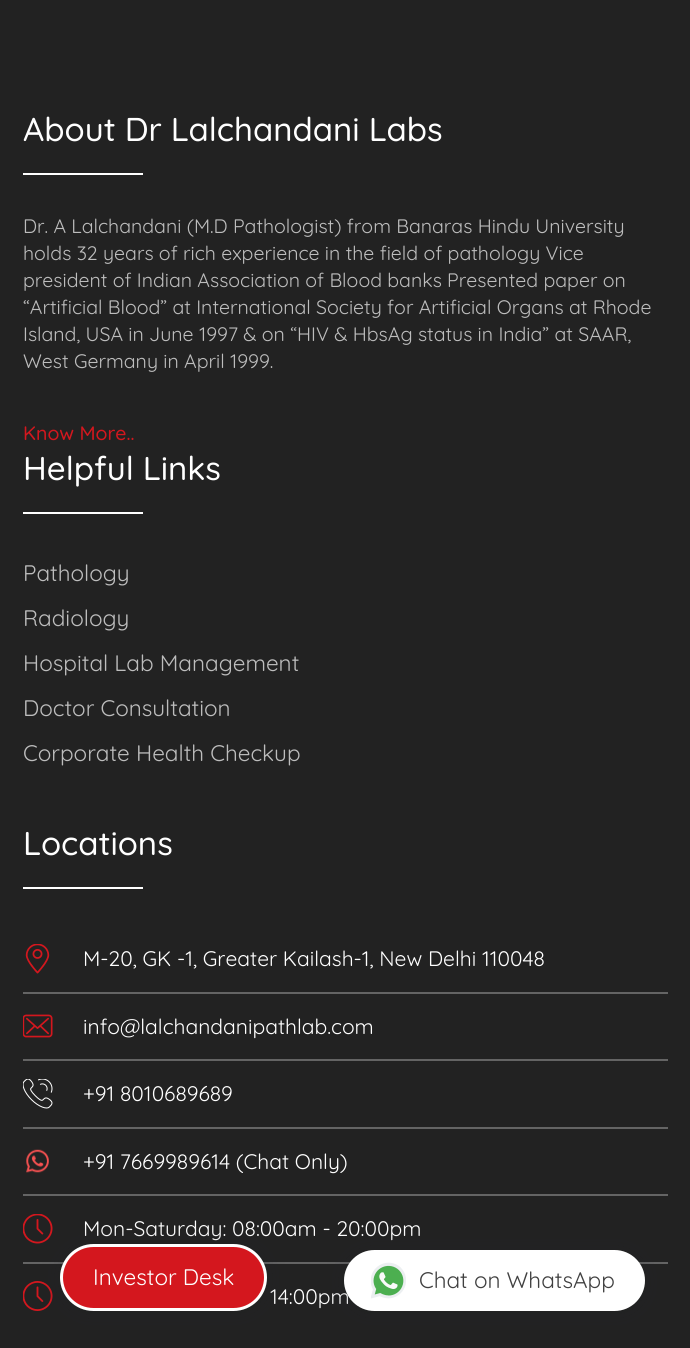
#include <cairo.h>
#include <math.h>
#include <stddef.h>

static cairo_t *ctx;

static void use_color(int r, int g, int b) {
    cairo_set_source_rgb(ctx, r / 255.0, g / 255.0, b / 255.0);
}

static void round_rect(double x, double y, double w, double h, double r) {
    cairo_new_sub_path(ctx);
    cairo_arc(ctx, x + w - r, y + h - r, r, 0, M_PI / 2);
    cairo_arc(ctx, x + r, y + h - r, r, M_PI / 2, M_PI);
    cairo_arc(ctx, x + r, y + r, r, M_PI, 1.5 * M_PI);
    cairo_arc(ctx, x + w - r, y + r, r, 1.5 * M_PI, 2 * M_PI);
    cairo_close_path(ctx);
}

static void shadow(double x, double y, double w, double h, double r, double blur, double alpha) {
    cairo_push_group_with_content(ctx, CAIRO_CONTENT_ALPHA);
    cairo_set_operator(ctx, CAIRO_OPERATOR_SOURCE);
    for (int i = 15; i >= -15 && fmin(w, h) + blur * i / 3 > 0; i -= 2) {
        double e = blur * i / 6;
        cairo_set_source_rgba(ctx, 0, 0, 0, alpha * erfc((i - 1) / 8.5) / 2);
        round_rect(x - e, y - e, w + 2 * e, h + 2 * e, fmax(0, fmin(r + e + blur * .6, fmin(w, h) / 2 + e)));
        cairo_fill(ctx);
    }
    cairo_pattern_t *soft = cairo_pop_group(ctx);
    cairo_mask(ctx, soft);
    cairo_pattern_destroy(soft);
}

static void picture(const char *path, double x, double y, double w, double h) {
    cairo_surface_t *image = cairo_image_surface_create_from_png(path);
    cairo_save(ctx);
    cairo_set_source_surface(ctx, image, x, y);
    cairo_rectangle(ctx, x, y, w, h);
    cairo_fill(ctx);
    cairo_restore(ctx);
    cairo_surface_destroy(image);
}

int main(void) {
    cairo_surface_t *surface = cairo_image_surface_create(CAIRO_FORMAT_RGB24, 690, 1348);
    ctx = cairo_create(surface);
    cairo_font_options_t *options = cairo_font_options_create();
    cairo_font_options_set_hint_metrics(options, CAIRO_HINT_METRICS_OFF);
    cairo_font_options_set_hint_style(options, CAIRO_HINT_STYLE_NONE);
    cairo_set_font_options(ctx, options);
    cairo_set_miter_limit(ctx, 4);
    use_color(34, 34, 34);
    cairo_paint(ctx);
    cairo_select_font_face(ctx, "Quicksand Medium", CAIRO_FONT_SLANT_NORMAL, CAIRO_FONT_WEIGHT_NORMAL);
    cairo_set_font_size(ctx, 33);
    use_color(255, 255, 255);
    cairo_move_to(ctx, 23, 141);
    cairo_show_text(ctx, "About Dr Lalchandani Labs");
    cairo_rectangle(ctx, 23, 173, 120, 2);
    cairo_fill(ctx);
    cairo_select_font_face(ctx, "Quicksand", CAIRO_FONT_SLANT_NORMAL, CAIRO_FONT_WEIGHT_NORMAL);
    cairo_set_font_size(ctx, 19.5);
    use_color(189, 189, 189);
    cairo_move_to(ctx, 23, 233);
    cairo_show_text(ctx, "Dr. A Lalchandani (M.D Pathologist) from Banaras Hindu University");
    cairo_move_to(ctx, 23, 260);
    cairo_show_text(ctx, "holds 32 years of rich experience in the field of pathology Vice");
    cairo_move_to(ctx, 23, 287);
    cairo_show_text(ctx, "president of Indian Association of Blood banks Presented paper on");
    cairo_move_to(ctx, 23, 314);
    cairo_show_text(ctx, "“Artificial Blood” at International Society for Artificial Organs at Rhode");
    cairo_move_to(ctx, 23, 341);
    cairo_show_text(ctx, "Island, USA in June 1997 & on “HIV & HbsAg status in India” at SAAR,");
    cairo_move_to(ctx, 23, 368);
    cairo_show_text(ctx, "West Germany in April 1999.");
    cairo_select_font_face(ctx, "Quicksand Medium", CAIRO_FONT_SLANT_NORMAL, CAIRO_FONT_WEIGHT_NORMAL);
    use_color(212, 23, 30);
    cairo_move_to(ctx, 23, 440);
    cairo_show_text(ctx, "Know More..");
    cairo_set_font_size(ctx, 33);
    use_color(255, 255, 255);
    cairo_move_to(ctx, 23, 480);
    cairo_show_text(ctx, "Helpful Links");
    cairo_rectangle(ctx, 23, 512, 120, 2);
    cairo_fill(ctx);
    cairo_select_font_face(ctx, "Quicksand", CAIRO_FONT_SLANT_NORMAL, CAIRO_FONT_WEIGHT_NORMAL);
    cairo_set_font_size(ctx, 22.5);
    use_color(189, 189, 189);
    cairo_move_to(ctx, 23, 581);
    cairo_show_text(ctx, "Pathology");
    cairo_move_to(ctx, 23, 626);
    cairo_show_text(ctx, "Radiology");
    cairo_move_to(ctx, 23, 671);
    cairo_show_text(ctx, "Hospital Lab Management");
    cairo_move_to(ctx, 23, 716);
    cairo_show_text(ctx, "Doctor Consultation");
    cairo_move_to(ctx, 23, 761);
    cairo_show_text(ctx, "Corporate Health Checkup");
    cairo_select_font_face(ctx, "Quicksand Medium", CAIRO_FONT_SLANT_NORMAL, CAIRO_FONT_WEIGHT_NORMAL);
    cairo_set_font_size(ctx, 33);
    use_color(255, 255, 255);
    cairo_move_to(ctx, 23, 855);
    cairo_show_text(ctx, "Locations");
    cairo_rectangle(ctx, 23, 887, 120, 2);
    cairo_fill(ctx);
    use_color(100, 100, 100);
    cairo_rectangle(ctx, 23, 992, 645, 2);
    cairo_fill(ctx);
    picture("img1.png", 25, 944, 25, 30);
    cairo_select_font_face(ctx, "Quicksand", CAIRO_FONT_SLANT_NORMAL, CAIRO_FONT_WEIGHT_NORMAL);
    cairo_set_font_size(ctx, 21);
    use_color(255, 255, 255);
    cairo_move_to(ctx, 83, 966);
    cairo_show_text(ctx, "M-20, GK -1, Greater Kailash-1, New Delhi 110048");
    use_color(100, 100, 100);
    cairo_rectangle(ctx, 23, 1059, 645, 2);
    cairo_fill(ctx);
    picture("img2.png", 23, 1014, 30, 24);
    use_color(255, 255, 255);
    cairo_move_to(ctx, 83, 1034);
    cairo_show_text(ctx, "info@lalchandanipathlab.com");
    use_color(100, 100, 100);
    cairo_rectangle(ctx, 23, 1127, 645, 2);
    cairo_fill(ctx);
    picture("img3.png", 23, 1079, 30, 30);
    use_color(255, 255, 255);
    cairo_move_to(ctx, 83, 1101);
    cairo_show_text(ctx, "+91 8010689689");
    use_color(100, 100, 100);
    cairo_rectangle(ctx, 23, 1194, 645, 2);
    cairo_fill(ctx);
    picture("img4.png", 26, 1149, 23, 24);
    use_color(255, 255, 255);
    cairo_move_to(ctx, 83, 1169);
    cairo_show_text(ctx, "+91 7669989614 (Chat Only)");
    use_color(100, 100, 100);
    cairo_rectangle(ctx, 23, 1262, 645, 2);
    cairo_fill(ctx);
    picture("img5.png", 23, 1214, 30, 30);
    use_color(255, 255, 255);
    cairo_move_to(ctx, 83, 1236);
    cairo_show_text(ctx, "Mon-Saturday: 08:00am - 20:00pm");
    picture("img6.png", 23, 1281, 30, 30);
    cairo_move_to(ctx, 270, 1304);
    cairo_show_text(ctx, "14:00pm");
    use_color(32, 33, 36);
    shadow(60, 1245, 207, 68, 34, 11, 0.28);
    use_color(212, 23, 30);
    round_rect(61.5, 1245.5, 204, 64, 32);
    cairo_fill_preserve(ctx);
    use_color(255, 255, 255);
    cairo_set_line_width(ctx, 3);
    cairo_stroke(ctx);
    cairo_set_font_size(ctx, 22.5);
    cairo_move_to(ctx, 93, 1285);
    cairo_show_text(ctx, "Investor Desk");
    use_color(32, 33, 36);
    shadow(344, 1251, 301, 62, 31, 11, 0.28);
    use_color(255, 255, 255);
    round_rect(344, 1250, 301, 61, 30.5);
    cairo_fill(ctx);
    picture("img7.png", 371, 1262, 35, 37);
    use_color(64, 64, 64);
    cairo_move_to(ctx, 419, 1288);
    cairo_show_text(ctx, "Chat on WhatsApp");
    cairo_surface_write_to_png(surface, "result.png");
    cairo_font_options_destroy(options);
    cairo_destroy(ctx);
    cairo_surface_destroy(surface);
    return 0;
}
